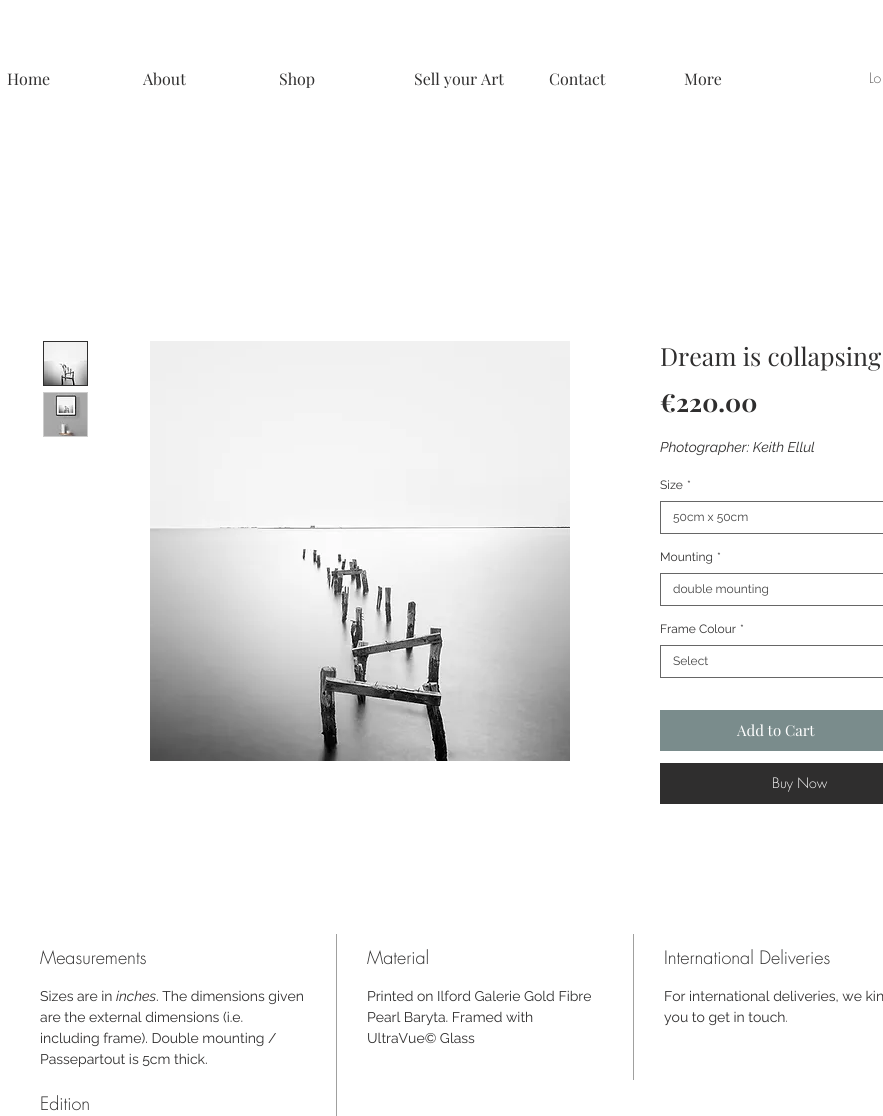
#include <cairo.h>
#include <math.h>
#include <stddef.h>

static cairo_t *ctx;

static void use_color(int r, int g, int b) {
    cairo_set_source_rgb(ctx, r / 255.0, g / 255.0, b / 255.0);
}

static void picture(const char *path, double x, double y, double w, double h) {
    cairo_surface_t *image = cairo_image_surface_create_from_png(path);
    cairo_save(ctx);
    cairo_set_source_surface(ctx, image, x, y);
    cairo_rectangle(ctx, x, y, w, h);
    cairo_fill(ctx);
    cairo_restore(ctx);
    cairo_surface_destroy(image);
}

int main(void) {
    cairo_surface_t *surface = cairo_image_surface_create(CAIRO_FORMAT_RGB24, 883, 1116);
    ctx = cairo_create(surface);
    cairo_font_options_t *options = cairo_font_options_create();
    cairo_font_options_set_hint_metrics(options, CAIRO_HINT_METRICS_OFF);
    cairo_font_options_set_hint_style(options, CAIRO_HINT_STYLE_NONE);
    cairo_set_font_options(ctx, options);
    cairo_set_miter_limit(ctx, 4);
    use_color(255, 255, 255);
    cairo_paint(ctx);
    cairo_select_font_face(ctx, "Playfair Display", CAIRO_FONT_SLANT_NORMAL, CAIRO_FONT_WEIGHT_NORMAL);
    cairo_set_font_size(ctx, 16);
    use_color(47, 46, 46);
    cairo_move_to(ctx, 7, 85);
    cairo_show_text(ctx, "Home");
    cairo_move_to(ctx, 143, 85);
    cairo_show_text(ctx, "About");
    cairo_move_to(ctx, 279, 85);
    cairo_show_text(ctx, "Shop");
    cairo_move_to(ctx, 414, 85);
    cairo_show_text(ctx, "Sell your Art");
    cairo_move_to(ctx, 549, 85);
    cairo_show_text(ctx, "Contact");
    cairo_move_to(ctx, 684, 85);
    cairo_show_text(ctx, "More");
    cairo_select_font_face(ctx, "futura Light", CAIRO_FONT_SLANT_NORMAL, CAIRO_FONT_WEIGHT_NORMAL);
    cairo_set_font_size(ctx, 14);
    use_color(96, 94, 94);
    cairo_move_to(ctx, 869, 83);
    cairo_show_text(ctx, "Lo");
    cairo_rectangle(ctx, 43.5, 341.5, 44, 44);
    use_color(47, 46, 46);
    cairo_set_line_width(ctx, 1);
    cairo_stroke(ctx);
    picture("img1.png", 44, 342, 43, 43);
    use_color(204, 204, 204);
    cairo_rectangle(ctx, 43, 392, 45, 45);
    cairo_fill(ctx);
    picture("img2.png", 44, 393, 43, 43);
    picture("img3.png", 150, 341, 420, 420);
    cairo_select_font_face(ctx, "Playfair Display", CAIRO_FONT_SLANT_NORMAL, CAIRO_FONT_WEIGHT_NORMAL);
    cairo_set_font_size(ctx, 25);
    use_color(47, 46, 46);
    cairo_move_to(ctx, 660, 366);
    cairo_show_text(ctx, "Dream is collapsing");
    cairo_select_font_face(ctx, "Playfair Display", CAIRO_FONT_SLANT_NORMAL, CAIRO_FONT_WEIGHT_BOLD);
    cairo_move_to(ctx, 660, 412);
    cairo_show_text(ctx, "€220.00");
    cairo_select_font_face(ctx, "Raleway", CAIRO_FONT_SLANT_ITALIC, CAIRO_FONT_WEIGHT_NORMAL);
    cairo_set_font_size(ctx, 14);
    cairo_move_to(ctx, 660, 452);
    cairo_show_text(ctx, "Photographer: Keith Ellul");
    cairo_select_font_face(ctx, "Raleway", CAIRO_FONT_SLANT_NORMAL, CAIRO_FONT_WEIGHT_NORMAL);
    cairo_set_font_size(ctx, 12);
    cairo_move_to(ctx, 660, 489);
    cairo_show_text(ctx, "Size");
    cairo_move_to(ctx, 687, 489);
    cairo_show_text(ctx, "*");
    cairo_rectangle(ctx, 660.5, 501.5, 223, 32);
    use_color(102, 102, 102);
    cairo_stroke(ctx);
    use_color(68, 68, 68);
    cairo_move_to(ctx, 673, 521);
    cairo_show_text(ctx, "50cm x 50cm");
    use_color(47, 46, 46);
    cairo_move_to(ctx, 660, 561);
    cairo_show_text(ctx, "Mounting");
    cairo_move_to(ctx, 717, 561);
    cairo_show_text(ctx, "*");
    cairo_rectangle(ctx, 660.5, 573.5, 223, 32);
    use_color(102, 102, 102);
    cairo_stroke(ctx);
    use_color(68, 68, 68);
    cairo_move_to(ctx, 673, 593);
    cairo_show_text(ctx, "double mounting");
    use_color(47, 46, 46);
    cairo_move_to(ctx, 660, 633);
    cairo_show_text(ctx, "Frame Colour");
    cairo_move_to(ctx, 740, 633);
    cairo_show_text(ctx, "*");
    cairo_rectangle(ctx, 660.5, 645.5, 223, 32);
    use_color(102, 102, 102);
    cairo_stroke(ctx);
    use_color(68, 68, 68);
    cairo_move_to(ctx, 673, 665);
    cairo_show_text(ctx, "Select");
    use_color(122, 140, 140);
    cairo_rectangle(ctx, 660, 710, 223, 41);
    cairo_fill(ctx);
    cairo_select_font_face(ctx, "Playfair Display", CAIRO_FONT_SLANT_NORMAL, CAIRO_FONT_WEIGHT_NORMAL);
    cairo_set_font_size(ctx, 15);
    use_color(255, 255, 255);
    cairo_move_to(ctx, 737, 736);
    cairo_show_text(ctx, "Add to Cart");
    use_color(47, 46, 46);
    cairo_rectangle(ctx, 660, 763, 223, 41);
    cairo_fill(ctx);
    cairo_select_font_face(ctx, "futura Light", CAIRO_FONT_SLANT_NORMAL, CAIRO_FONT_WEIGHT_NORMAL);
    cairo_set_font_size(ctx, 14);
    use_color(255, 255, 255);
    cairo_move_to(ctx, 772, 788);
    cairo_show_text(ctx, "Buy Now");
    use_color(160, 160, 159);
    cairo_rectangle(ctx, 336, 934, 1, 182);
    cairo_fill(ctx);
    cairo_set_font_size(ctx, 18);
    use_color(47, 46, 46);
    cairo_move_to(ctx, 40, 964);
    cairo_show_text(ctx, "Measurements");
    cairo_select_font_face(ctx, "Raleway", CAIRO_FONT_SLANT_NORMAL, CAIRO_FONT_WEIGHT_NORMAL);
    cairo_set_font_size(ctx, 14);
    cairo_move_to(ctx, 40, 1001);
    cairo_show_text(ctx, "Sizes are in");
    cairo_select_font_face(ctx, "Raleway", CAIRO_FONT_SLANT_ITALIC, CAIRO_FONT_WEIGHT_NORMAL);
    cairo_move_to(ctx, 116, 1001);
    cairo_show_text(ctx, "inches");
    cairo_select_font_face(ctx, "Raleway", CAIRO_FONT_SLANT_NORMAL, CAIRO_FONT_WEIGHT_NORMAL);
    cairo_move_to(ctx, 156, 1001);
    cairo_show_text(ctx, ". The dimensions given");
    cairo_move_to(ctx, 40, 1022);
    cairo_show_text(ctx, "are the external dimensions (i.e.");
    cairo_move_to(ctx, 40, 1043);
    cairo_show_text(ctx, "including frame). Double mounting /");
    cairo_move_to(ctx, 40, 1064);
    cairo_show_text(ctx, "Passepartout is 5cm thick.");
    use_color(160, 160, 159);
    cairo_rectangle(ctx, 633, 934, 1, 146);
    cairo_fill(ctx);
    cairo_select_font_face(ctx, "futura Light", CAIRO_FONT_SLANT_NORMAL, CAIRO_FONT_WEIGHT_NORMAL);
    cairo_set_font_size(ctx, 18);
    use_color(47, 46, 46);
    cairo_move_to(ctx, 367, 964);
    cairo_show_text(ctx, "Material");
    cairo_select_font_face(ctx, "Raleway", CAIRO_FONT_SLANT_NORMAL, CAIRO_FONT_WEIGHT_NORMAL);
    cairo_set_font_size(ctx, 14);
    cairo_move_to(ctx, 367, 1001);
    cairo_show_text(ctx, "Printed on Ilford Galerie Gold Fibre");
    cairo_move_to(ctx, 367, 1022);
    cairo_show_text(ctx, "Pearl Baryta. Framed with");
    cairo_move_to(ctx, 367, 1043);
    cairo_show_text(ctx, "UltraVue© Glass");
    cairo_select_font_face(ctx, "futura Light", CAIRO_FONT_SLANT_NORMAL, CAIRO_FONT_WEIGHT_NORMAL);
    cairo_set_font_size(ctx, 18);
    cairo_move_to(ctx, 664, 964);
    cairo_show_text(ctx, "International Deliveries");
    cairo_select_font_face(ctx, "Raleway", CAIRO_FONT_SLANT_NORMAL, CAIRO_FONT_WEIGHT_NORMAL);
    cairo_set_font_size(ctx, 14);
    cairo_move_to(ctx, 664, 1001);
    cairo_show_text(ctx, "For international deliveries, we kin");
    cairo_move_to(ctx, 664, 1022);
    cairo_show_text(ctx, "you to get in touch.");
    cairo_select_font_face(ctx, "futura Light", CAIRO_FONT_SLANT_NORMAL, CAIRO_FONT_WEIGHT_NORMAL);
    cairo_set_font_size(ctx, 18);
    cairo_move_to(ctx, 40, 1110);
    cairo_show_text(ctx, "Edition");
    cairo_surface_write_to_png(surface, "result.png");
    cairo_font_options_destroy(options);
    cairo_destroy(ctx);
    cairo_surface_destroy(surface);
    return 0;
}
